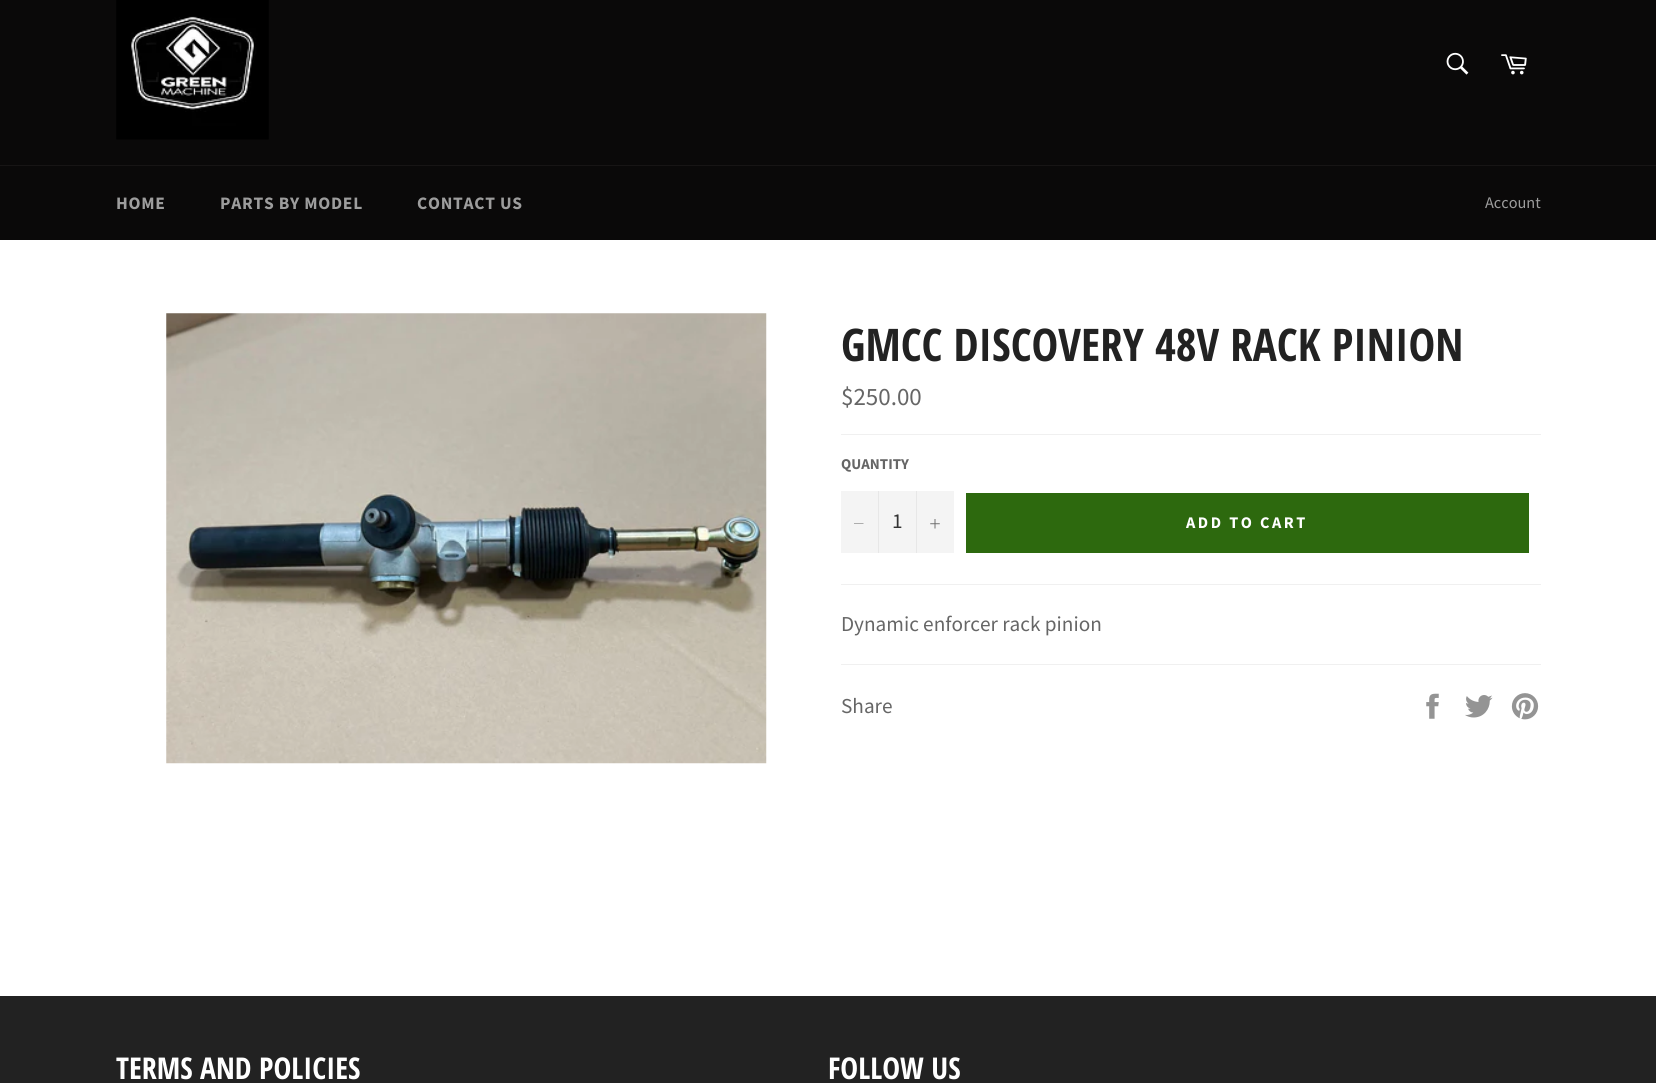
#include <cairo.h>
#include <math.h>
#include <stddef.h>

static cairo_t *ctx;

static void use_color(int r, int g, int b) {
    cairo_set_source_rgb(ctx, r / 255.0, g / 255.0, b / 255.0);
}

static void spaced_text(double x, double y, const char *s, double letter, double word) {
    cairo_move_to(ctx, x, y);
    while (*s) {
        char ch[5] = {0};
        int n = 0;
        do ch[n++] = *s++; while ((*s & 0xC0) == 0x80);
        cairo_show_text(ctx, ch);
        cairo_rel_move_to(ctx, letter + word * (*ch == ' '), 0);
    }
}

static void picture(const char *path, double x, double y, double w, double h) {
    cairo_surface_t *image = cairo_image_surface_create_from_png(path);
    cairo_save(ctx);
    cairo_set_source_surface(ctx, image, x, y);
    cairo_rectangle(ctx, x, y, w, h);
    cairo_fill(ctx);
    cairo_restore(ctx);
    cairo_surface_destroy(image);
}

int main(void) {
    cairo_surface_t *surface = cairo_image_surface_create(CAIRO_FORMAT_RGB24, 1656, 1083);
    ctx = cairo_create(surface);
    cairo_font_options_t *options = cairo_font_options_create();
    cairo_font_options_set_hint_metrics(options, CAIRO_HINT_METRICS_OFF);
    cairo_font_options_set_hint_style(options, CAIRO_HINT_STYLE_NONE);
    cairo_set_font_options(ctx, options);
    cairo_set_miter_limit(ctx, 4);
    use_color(10, 9, 9);
    cairo_paint(ctx);
    picture("img1.png", 116, 0, 153, 140);
    picture("img2.png", 1446, 52, 23, 23);
    picture("img3.png", 1501, 54, 26, 21);
    use_color(23, 21, 21);
    cairo_rectangle(ctx, 0, 165, 1656, 1);
    cairo_fill(ctx);
    cairo_select_font_face(ctx, "Source Sans Pro", CAIRO_FONT_SLANT_NORMAL, CAIRO_FONT_WEIGHT_BOLD);
    cairo_set_font_size(ctx, 17.5);
    use_color(157, 157, 157);
    spaced_text(116, 209, "HOME", 0.75, 0);
    spaced_text(220, 209, "PARTS BY MODEL", 0.75, 0);
    spaced_text(417, 209, "CONTACT US", 0.75, 0);
    cairo_select_font_face(ctx, "Source Sans Pro", CAIRO_FONT_SLANT_NORMAL, CAIRO_FONT_WEIGHT_NORMAL);
    cairo_set_font_size(ctx, 16.25);
    cairo_move_to(ctx, 1485, 208);
    cairo_show_text(ctx, "Account");
    use_color(255, 255, 255);
    cairo_rectangle(ctx, 0, 240, 1656, 756);
    cairo_fill(ctx);
    picture("img4.png", 166, 313, 601, 451);
    cairo_select_font_face(ctx, "Open Sans Condensed", CAIRO_FONT_SLANT_NORMAL, CAIRO_FONT_WEIGHT_BOLD);
    cairo_set_font_size(ctx, 45);
    use_color(34, 34, 34);
    cairo_move_to(ctx, 841, 361);
    cairo_show_text(ctx, "GMCC DISCOVERY 48V RACK PINION");
    cairo_select_font_face(ctx, "Source Sans Pro", CAIRO_FONT_SLANT_NORMAL, CAIRO_FONT_WEIGHT_NORMAL);
    cairo_set_font_size(ctx, 25);
    use_color(102, 102, 102);
    cairo_move_to(ctx, 841, 405);
    cairo_show_text(ctx, "$250.00");
    use_color(240, 240, 240);
    cairo_rectangle(ctx, 841, 434, 700, 1);
    cairo_fill(ctx);
    cairo_select_font_face(ctx, "Source Sans Pro", CAIRO_FONT_SLANT_NORMAL, CAIRO_FONT_WEIGHT_BOLD);
    cairo_set_font_size(ctx, 15);
    use_color(102, 102, 102);
    cairo_move_to(ctx, 841, 469);
    cairo_show_text(ctx, "QUANTITY");
    use_color(244, 244, 244);
    cairo_rectangle(ctx, 841, 491, 113, 62);
    cairo_fill(ctx);
    use_color(231, 231, 231);
    cairo_rectangle(ctx, 878, 491, 1, 62);
    cairo_fill(ctx);
    use_color(102, 102, 102);
    cairo_set_fill_rule(ctx, CAIRO_FILL_RULE_EVEN_ODD);
    cairo_new_path(ctx);
    cairo_move_to(ctx, 863.5, 523.5);
    cairo_line_to(ctx, 863.5, 524);
    cairo_line_to(ctx, 854, 524);
    cairo_line_to(ctx, 854, 523.5);
    cairo_close_path(ctx);
    cairo_fill(ctx);
    cairo_select_font_face(ctx, "Source Sans Pro", CAIRO_FONT_SLANT_NORMAL, CAIRO_FONT_WEIGHT_NORMAL);
    cairo_set_font_size(ctx, 21.25);
    use_color(51, 51, 51);
    cairo_move_to(ctx, 892, 528);
    cairo_show_text(ctx, "1");
    use_color(231, 231, 231);
    cairo_rectangle(ctx, 916, 491, 1, 62);
    cairo_fill(ctx);
    picture("img5.png", 930, 519, 10, 10);
    use_color(45, 105, 14);
    cairo_rectangle(ctx, 966, 493, 563, 60);
    cairo_fill(ctx);
    cairo_select_font_face(ctx, "Source Sans Pro", CAIRO_FONT_SLANT_NORMAL, CAIRO_FONT_WEIGHT_BOLD);
    cairo_set_font_size(ctx, 16.25);
    use_color(255, 255, 255);
    spaced_text(1186, 528, "ADD TO CART", 2.5, 0);
    use_color(240, 240, 240);
    cairo_rectangle(ctx, 841, 584, 700, 1);
    cairo_fill(ctx);
    cairo_select_font_face(ctx, "Source Sans Pro", CAIRO_FONT_SLANT_NORMAL, CAIRO_FONT_WEIGHT_NORMAL);
    cairo_set_font_size(ctx, 21.25);
    use_color(102, 102, 102);
    cairo_move_to(ctx, 841, 631);
    cairo_show_text(ctx, "Dynamic enforcer rack pinion");
    use_color(240, 240, 240);
    cairo_rectangle(ctx, 841, 664, 700, 1);
    cairo_fill(ctx);
    use_color(102, 102, 102);
    cairo_move_to(ctx, 841, 713);
    cairo_show_text(ctx, "Share");
    picture("img6.png", 1426, 693, 13, 26);
    picture("img7.png", 1465, 695, 28, 23);
    picture("img8.png", 1511, 693, 28, 27);
    use_color(34, 34, 34);
    cairo_rectangle(ctx, 0, 996, 1656, 87);
    cairo_fill(ctx);
    cairo_select_font_face(ctx, "Open Sans Condensed", CAIRO_FONT_SLANT_NORMAL, CAIRO_FONT_WEIGHT_BOLD);
    cairo_set_font_size(ctx, 30);
    use_color(255, 255, 255);
    cairo_move_to(ctx, 116, 1079);
    cairo_show_text(ctx, "TERMS AND POLICIES");
    cairo_move_to(ctx, 828, 1079);
    cairo_show_text(ctx, "FOLLOW US");
    cairo_surface_write_to_png(surface, "result.png");
    cairo_font_options_destroy(options);
    cairo_destroy(ctx);
    cairo_surface_destroy(surface);
    return 0;
}
